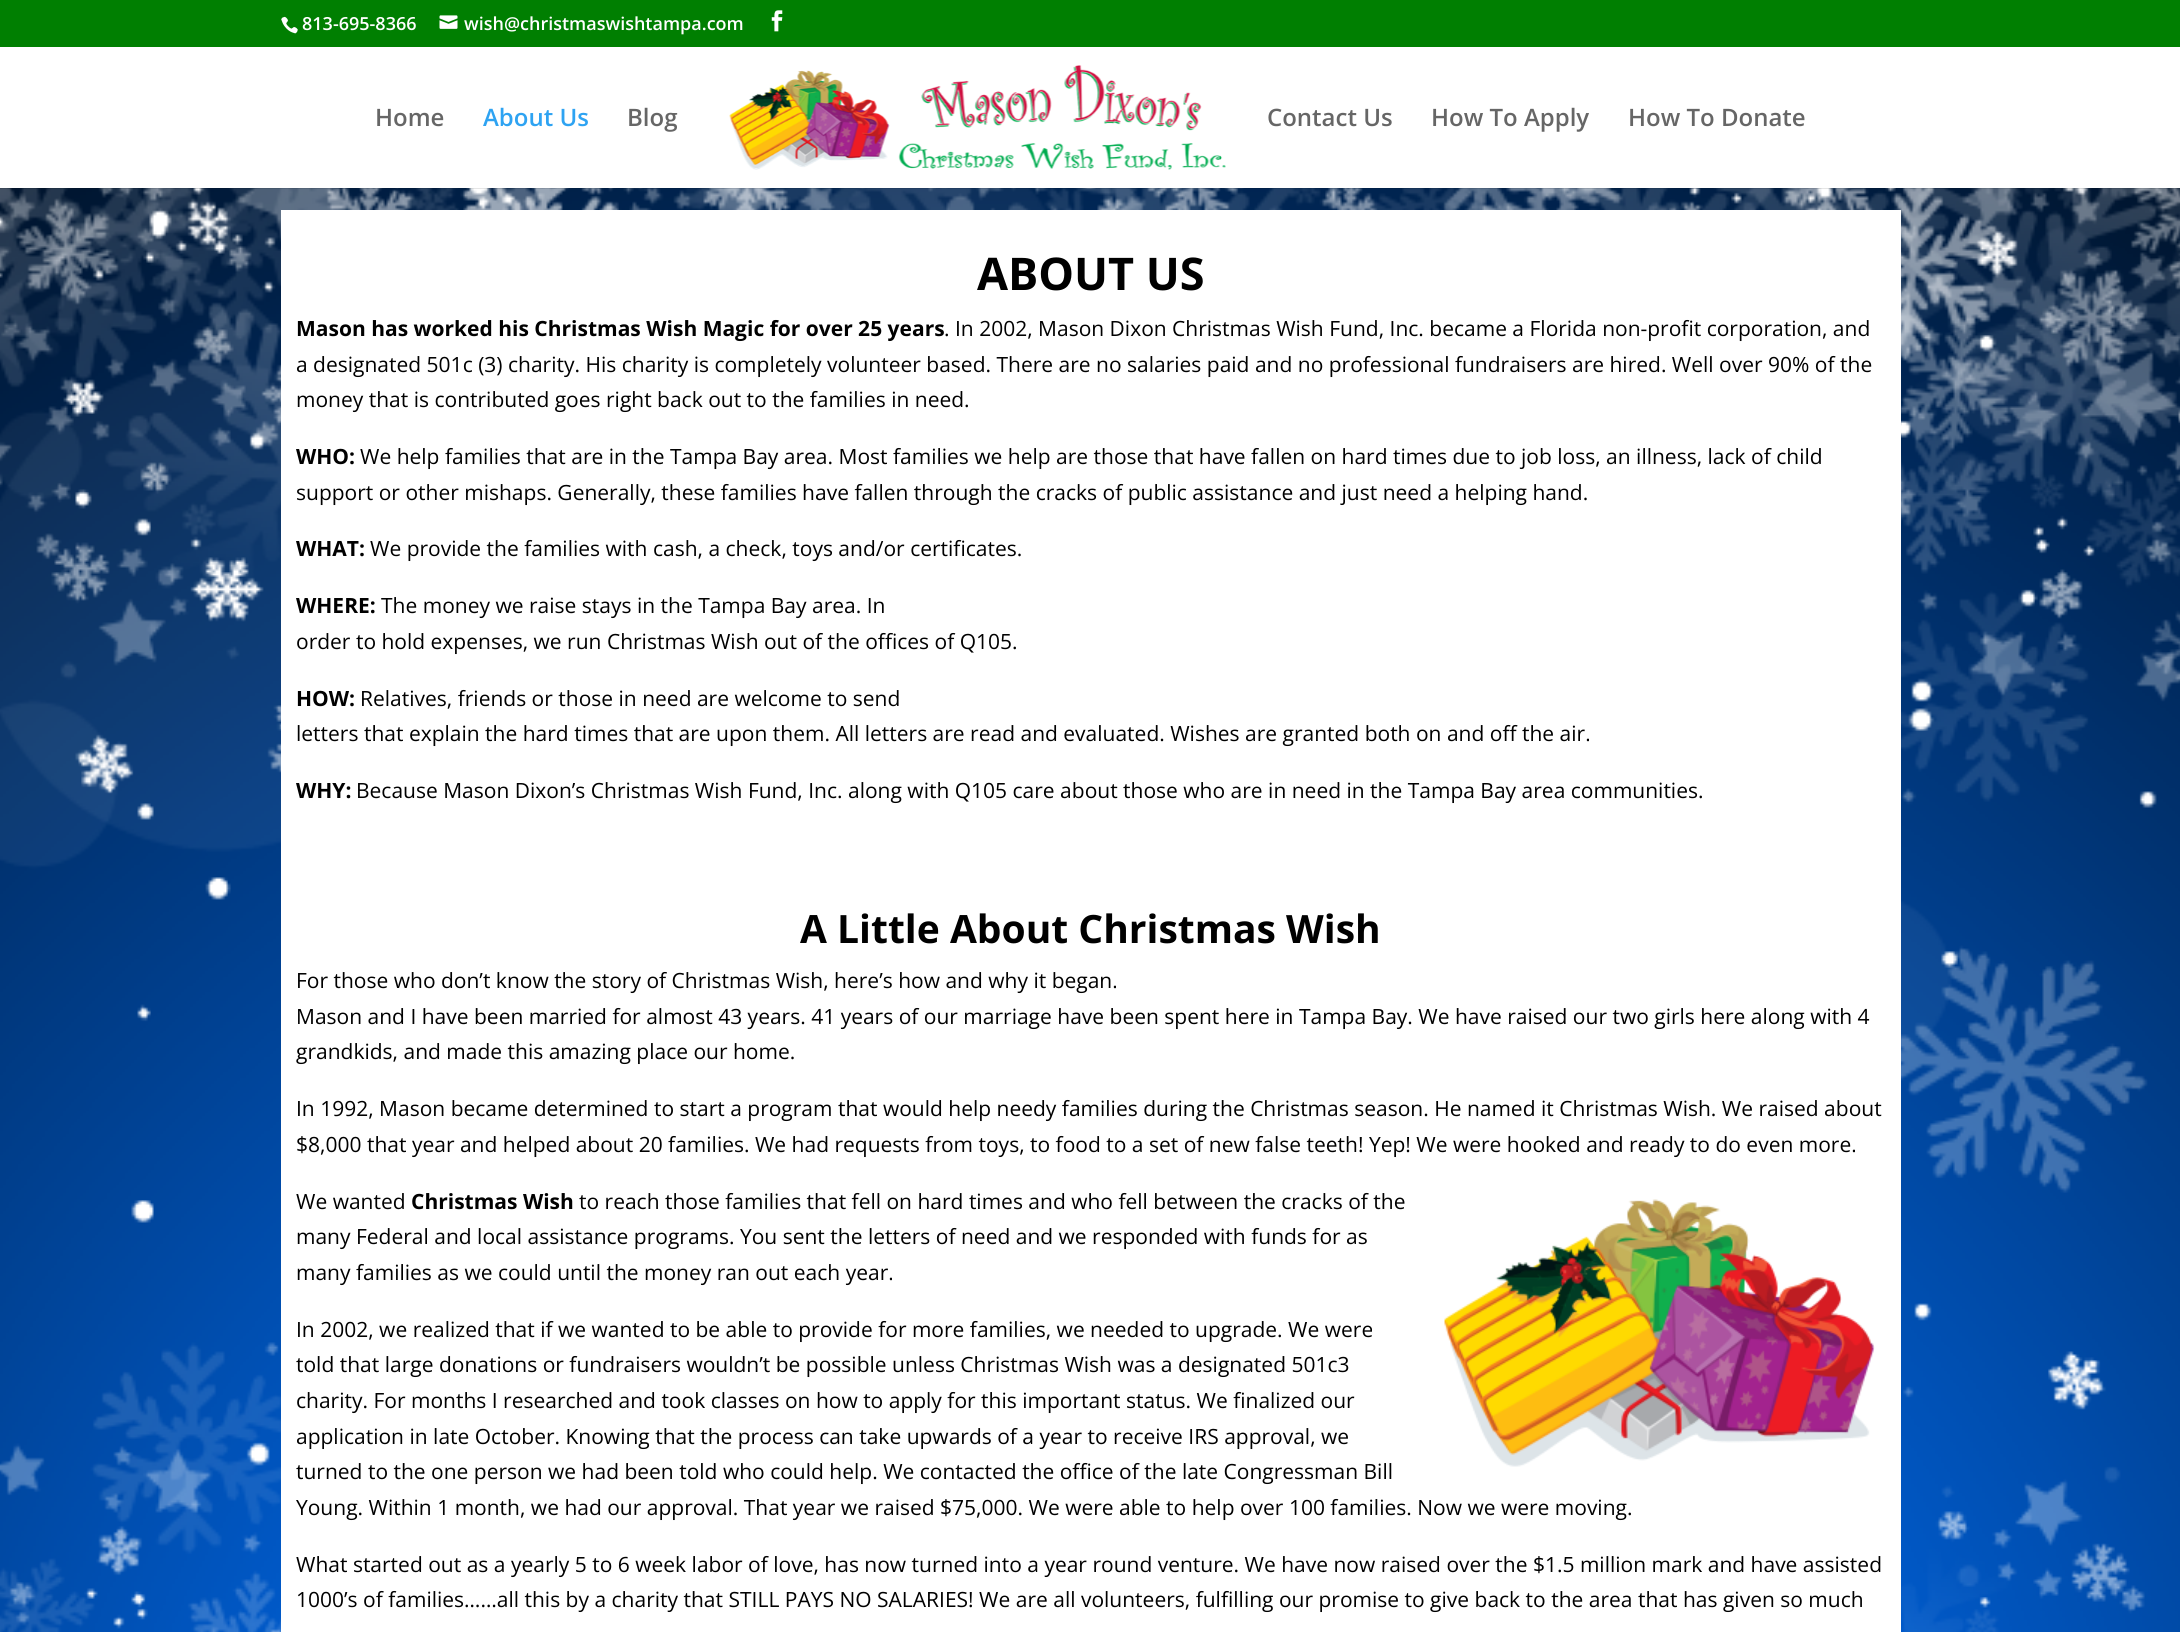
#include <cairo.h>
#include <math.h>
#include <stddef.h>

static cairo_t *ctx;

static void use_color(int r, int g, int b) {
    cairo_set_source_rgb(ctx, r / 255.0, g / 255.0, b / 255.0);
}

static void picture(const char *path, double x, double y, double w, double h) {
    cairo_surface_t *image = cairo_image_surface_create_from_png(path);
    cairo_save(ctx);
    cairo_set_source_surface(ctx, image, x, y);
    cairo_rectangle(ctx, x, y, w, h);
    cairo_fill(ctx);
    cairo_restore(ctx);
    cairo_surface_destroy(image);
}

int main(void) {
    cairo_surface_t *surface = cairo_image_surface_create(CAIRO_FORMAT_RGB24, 2180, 1632);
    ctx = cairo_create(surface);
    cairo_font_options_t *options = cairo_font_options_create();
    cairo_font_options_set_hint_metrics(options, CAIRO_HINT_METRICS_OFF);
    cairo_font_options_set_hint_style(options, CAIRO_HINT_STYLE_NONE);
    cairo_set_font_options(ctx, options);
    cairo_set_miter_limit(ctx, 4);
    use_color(255, 255, 255);
    cairo_paint(ctx);
    use_color(0, 127, 1);
    cairo_rectangle(ctx, 0, 0, 2180, 47);
    cairo_fill(ctx);
    picture("img1.png", 281, 16, 17, 18);
    cairo_select_font_face(ctx, "Open Sans SemiBold", CAIRO_FONT_SLANT_NORMAL, CAIRO_FONT_WEIGHT_NORMAL);
    cairo_set_font_size(ctx, 18);
    use_color(255, 255, 255);
    cairo_move_to(ctx, 302, 30);
    cairo_show_text(ctx, "813-695-8366");
    picture("img2.png", 439, 15, 19, 14);
    cairo_move_to(ctx, 464, 30);
    cairo_show_text(ctx, "wish@christmaswishtampa.com");
    picture("img3.png", 771, 10, 12, 22);
    picture("img5.png", 0, 188, 2180, 1444);
    cairo_set_source_rgba(ctx, 0, 0, 0, 0.1);
    cairo_rectangle(ctx, 0, 188, 2180, 1);
    cairo_fill(ctx);
    cairo_set_font_size(ctx, 24);
    use_color(102, 102, 102);
    cairo_move_to(ctx, 375, 126);
    cairo_show_text(ctx, "Home");
    use_color(46, 163, 242);
    cairo_move_to(ctx, 483, 126);
    cairo_show_text(ctx, "About Us");
    use_color(102, 102, 102);
    cairo_move_to(ctx, 627, 126);
    cairo_show_text(ctx, "Blog");
    picture("img4.png", 729, 65, 497, 105);
    cairo_move_to(ctx, 1267, 126);
    cairo_show_text(ctx, "Contact Us");
    cairo_move_to(ctx, 1431, 126);
    cairo_show_text(ctx, "How To Apply");
    cairo_move_to(ctx, 1628, 126);
    cairo_show_text(ctx, "How To Donate");
    use_color(255, 255, 255);
    cairo_rectangle(ctx, 281, 210, 1620, 1422);
    cairo_fill(ctx);
    cairo_select_font_face(ctx, "Open Sans", CAIRO_FONT_SLANT_NORMAL, CAIRO_FONT_WEIGHT_BOLD);
    cairo_set_font_size(ctx, 45);
    use_color(0, 0, 0);
    cairo_move_to(ctx, 977, 290);
    cairo_show_text(ctx, "ABOUT US");
    cairo_set_font_size(ctx, 21);
    cairo_move_to(ctx, 296, 336);
    cairo_show_text(ctx, "Mason has worked his Christmas Wish Magic for over 25 years");
    cairo_select_font_face(ctx, "Open Sans", CAIRO_FONT_SLANT_NORMAL, CAIRO_FONT_WEIGHT_NORMAL);
    cairo_move_to(ctx, 944, 336);
    cairo_show_text(ctx, ". In 2002, Mason Dixon Christmas Wish Fund, Inc. became a Florida non-profit corporation, and");
    cairo_move_to(ctx, 296, 372);
    cairo_show_text(ctx, "a designated 501c (3) charity. His charity is completely volunteer based. There are no salaries paid and no professional fundraisers are hired. Well over 90% of the");
    cairo_move_to(ctx, 296, 407);
    cairo_show_text(ctx, "money that is contributed goes right back out to the families in need.");
    cairo_select_font_face(ctx, "Open Sans", CAIRO_FONT_SLANT_NORMAL, CAIRO_FONT_WEIGHT_BOLD);
    cairo_move_to(ctx, 296, 464);
    cairo_show_text(ctx, "WHO:");
    cairo_select_font_face(ctx, "Open Sans", CAIRO_FONT_SLANT_NORMAL, CAIRO_FONT_WEIGHT_NORMAL);
    cairo_move_to(ctx, 360, 464);
    cairo_show_text(ctx, "We help families that are in the Tampa Bay area. Most families we help are those that have fallen on hard times due to job loss, an illness, lack of child");
    cairo_move_to(ctx, 296, 500);
    cairo_show_text(ctx, "support or other mishaps. Generally, these families have fallen through the cracks of public assistance and just need a helping hand.");
    cairo_select_font_face(ctx, "Open Sans", CAIRO_FONT_SLANT_NORMAL, CAIRO_FONT_WEIGHT_BOLD);
    cairo_move_to(ctx, 296, 556);
    cairo_show_text(ctx, "WHAT:");
    cairo_select_font_face(ctx, "Open Sans", CAIRO_FONT_SLANT_NORMAL, CAIRO_FONT_WEIGHT_NORMAL);
    cairo_move_to(ctx, 370, 556);
    cairo_show_text(ctx, "We provide the families with cash, a check, toys and/or certificates.");
    cairo_select_font_face(ctx, "Open Sans", CAIRO_FONT_SLANT_NORMAL, CAIRO_FONT_WEIGHT_BOLD);
    cairo_move_to(ctx, 296, 613);
    cairo_show_text(ctx, "WHERE:");
    cairo_select_font_face(ctx, "Open Sans", CAIRO_FONT_SLANT_NORMAL, CAIRO_FONT_WEIGHT_NORMAL);
    cairo_move_to(ctx, 381, 613);
    cairo_show_text(ctx, "The money we raise stays in the Tampa Bay area. In");
    cairo_move_to(ctx, 296, 649);
    cairo_show_text(ctx, "order to hold expenses, we run Christmas Wish out of the offices of Q105.");
    cairo_select_font_face(ctx, "Open Sans", CAIRO_FONT_SLANT_NORMAL, CAIRO_FONT_WEIGHT_BOLD);
    cairo_move_to(ctx, 296, 706);
    cairo_show_text(ctx, "HOW:");
    cairo_select_font_face(ctx, "Open Sans", CAIRO_FONT_SLANT_NORMAL, CAIRO_FONT_WEIGHT_NORMAL);
    cairo_move_to(ctx, 360, 706);
    cairo_show_text(ctx, "Relatives, friends or those in need are welcome to send");
    cairo_move_to(ctx, 296, 741);
    cairo_show_text(ctx, "letters that explain the hard times that are upon them. All letters are read and evaluated. Wishes are granted both on and off the air.");
    cairo_select_font_face(ctx, "Open Sans", CAIRO_FONT_SLANT_NORMAL, CAIRO_FONT_WEIGHT_BOLD);
    cairo_move_to(ctx, 296, 798);
    cairo_show_text(ctx, "WHY:");
    cairo_select_font_face(ctx, "Open Sans", CAIRO_FONT_SLANT_NORMAL, CAIRO_FONT_WEIGHT_NORMAL);
    cairo_move_to(ctx, 356, 798);
    cairo_show_text(ctx, "Because Mason Dixon’s Christmas Wish Fund, Inc. along with Q105 care about those who are in need in the Tampa Bay area communities.");
    cairo_select_font_face(ctx, "Open Sans", CAIRO_FONT_SLANT_NORMAL, CAIRO_FONT_WEIGHT_BOLD);
    cairo_set_font_size(ctx, 39);
    cairo_move_to(ctx, 800, 943);
    cairo_show_text(ctx, "A Little About Christmas Wish");
    cairo_select_font_face(ctx, "Open Sans", CAIRO_FONT_SLANT_NORMAL, CAIRO_FONT_WEIGHT_NORMAL);
    cairo_set_font_size(ctx, 21);
    cairo_move_to(ctx, 296, 988);
    cairo_show_text(ctx, "For those who don’t know the story of Christmas Wish, here’s how and why it began.");
    cairo_move_to(ctx, 296, 1024);
    cairo_show_text(ctx, "Mason and I have been married for almost 43 years. 41 years of our marriage have been spent here in Tampa Bay. We have raised our two girls here along with 4");
    cairo_move_to(ctx, 296, 1059);
    cairo_show_text(ctx, "grandkids, and made this amazing place our home.");
    cairo_move_to(ctx, 296, 1116);
    cairo_show_text(ctx, "In 1992, Mason became determined to start a program that would help needy families during the Christmas season. He named it Christmas Wish. We raised about");
    cairo_move_to(ctx, 296, 1152);
    cairo_show_text(ctx, "$8,000 that year and helped about 20 families. We had requests from toys, to food to a set of new false teeth! Yep! We were hooked and ready to do even more.");
    cairo_move_to(ctx, 296, 1209);
    cairo_show_text(ctx, "We wanted");
    cairo_select_font_face(ctx, "Open Sans", CAIRO_FONT_SLANT_NORMAL, CAIRO_FONT_WEIGHT_BOLD);
    cairo_move_to(ctx, 411, 1209);
    cairo_show_text(ctx, "Christmas Wish");
    cairo_select_font_face(ctx, "Open Sans", CAIRO_FONT_SLANT_NORMAL, CAIRO_FONT_WEIGHT_NORMAL);
    cairo_move_to(ctx, 579, 1209);
    cairo_show_text(ctx, "to reach those families that fell on hard times and who fell between the cracks of the");
    picture("img6.png", 1444, 1199, 431, 268);
    cairo_move_to(ctx, 296, 1244);
    cairo_show_text(ctx, "many Federal and local assistance programs. You sent the letters of need and we responded with funds for as");
    cairo_move_to(ctx, 296, 1280);
    cairo_show_text(ctx, "many families as we could until the money ran out each year.");
    cairo_move_to(ctx, 296, 1337);
    cairo_show_text(ctx, "In 2002, we realized that if we wanted to be able to provide for more families, we needed to upgrade. We were");
    cairo_move_to(ctx, 296, 1372);
    cairo_show_text(ctx, "told that large donations or fundraisers wouldn’t be possible unless Christmas Wish was a designated 501c3");
    cairo_move_to(ctx, 296, 1408);
    cairo_show_text(ctx, "charity. For months I researched and took classes on how to apply for this important status. We finalized our");
    cairo_move_to(ctx, 296, 1444);
    cairo_show_text(ctx, "application in late October. Knowing that the process can take upwards of a year to receive IRS approval, we");
    cairo_move_to(ctx, 296, 1479);
    cairo_show_text(ctx, "turned to the one person we had been told who could help. We contacted the office of the late Congressman Bill");
    cairo_move_to(ctx, 296, 1515);
    cairo_show_text(ctx, "Young. Within 1 month, we had our approval. That year we raised $75,000. We were able to help over 100 families. Now we were moving.");
    cairo_move_to(ctx, 296, 1572);
    cairo_show_text(ctx, "What started out as a yearly 5 to 6 week labor of love, has now turned into a year round venture. We have now raised over the $1.5 million mark and have assisted");
    cairo_move_to(ctx, 296, 1607);
    cairo_show_text(ctx, "1000’s of families……all this by a charity that STILL PAYS NO SALARIES! We are all volunteers, fulfilling our promise to give back to the area that has given so much");
    cairo_surface_write_to_png(surface, "result.png");
    cairo_font_options_destroy(options);
    cairo_destroy(ctx);
    cairo_surface_destroy(surface);
    return 0;
}
